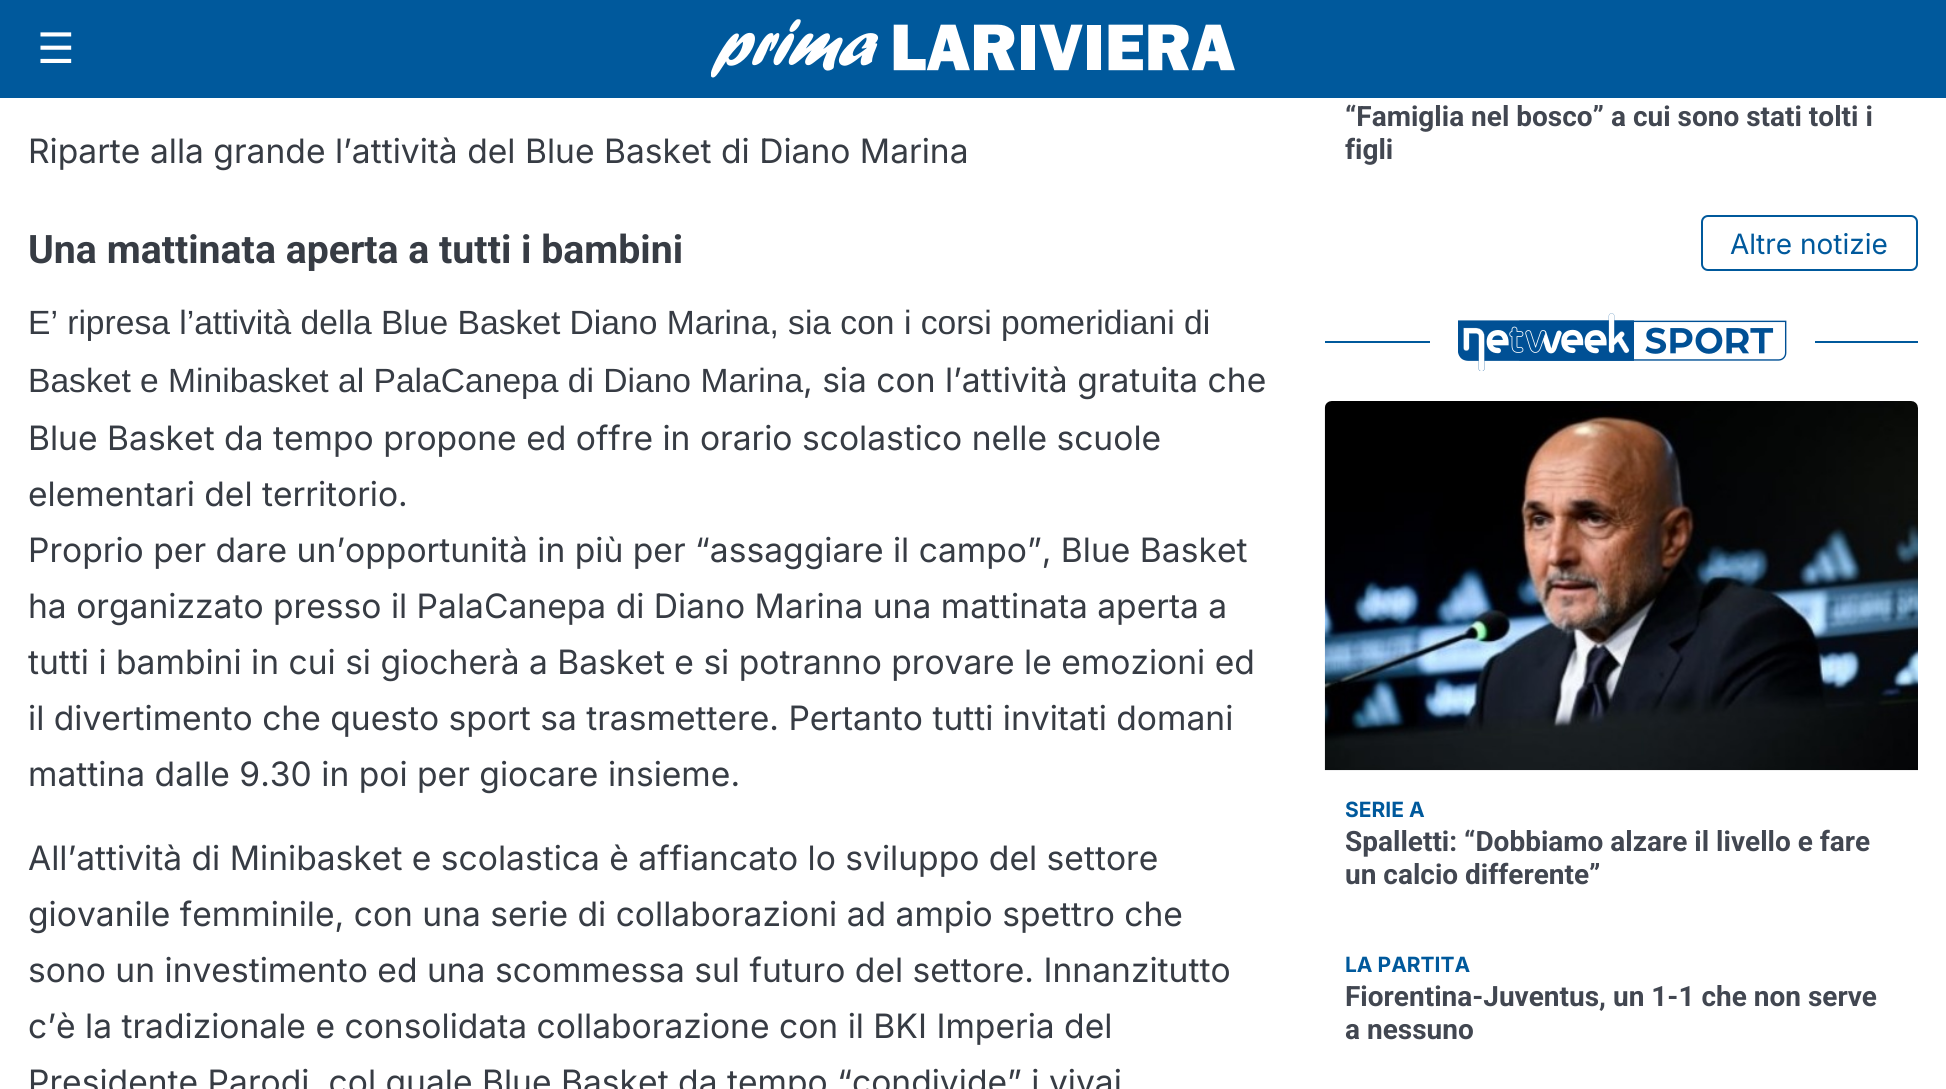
#include <cairo.h>
#include <math.h>
#include <stddef.h>

static cairo_t *ctx;

static void use_color(int r, int g, int b) {
    cairo_set_source_rgb(ctx, r / 255.0, g / 255.0, b / 255.0);
}

static void round_rect(double x, double y, double w, double h, double r) {
    cairo_new_sub_path(ctx);
    cairo_arc(ctx, x + w - r, y + h - r, r, 0, M_PI / 2);
    cairo_arc(ctx, x + r, y + h - r, r, M_PI / 2, M_PI);
    cairo_arc(ctx, x + r, y + r, r, M_PI, 1.5 * M_PI);
    cairo_arc(ctx, x + w - r, y + r, r, 1.5 * M_PI, 2 * M_PI);
    cairo_close_path(ctx);
}

static void picture(const char *path, double x, double y, double w, double h) {
    cairo_surface_t *image = cairo_image_surface_create_from_png(path);
    cairo_save(ctx);
    cairo_set_source_surface(ctx, image, x, y);
    cairo_rectangle(ctx, x, y, w, h);
    cairo_fill(ctx);
    cairo_restore(ctx);
    cairo_surface_destroy(image);
}

int main(void) {
    cairo_surface_t *surface = cairo_image_surface_create(CAIRO_FORMAT_RGB24, 1946, 1089);
    ctx = cairo_create(surface);
    cairo_font_options_t *options = cairo_font_options_create();
    cairo_font_options_set_hint_metrics(options, CAIRO_HINT_METRICS_OFF);
    cairo_font_options_set_hint_style(options, CAIRO_HINT_STYLE_NONE);
    cairo_set_font_options(ctx, options);
    cairo_set_miter_limit(ctx, 4);
    use_color(255, 255, 255);
    cairo_paint(ctx);
    use_color(0, 89, 156);
    cairo_rectangle(ctx, 0, 0, 1946, 98);
    cairo_fill(ctx);
    cairo_select_font_face(ctx, "DejaVu Sans", CAIRO_FONT_SLANT_NORMAL, CAIRO_FONT_WEIGHT_NORMAL);
    cairo_set_font_size(ctx, 42);
    use_color(255, 255, 255);
    cairo_move_to(ctx, 37, 63);
    cairo_show_text(ctx, "☰");
    picture("img1.png", 711, 19, 524, 59);
    cairo_select_font_face(ctx, "Inter", CAIRO_FONT_SLANT_NORMAL, CAIRO_FONT_WEIGHT_NORMAL);
    cairo_set_font_size(ctx, 33.6);
    use_color(55, 60, 68);
    cairo_move_to(ctx, 28, 163);
    cairo_show_text(ctx, "Riparte alla grande l’attività del Blue Basket di Diano Marina");
    cairo_select_font_face(ctx, "Roboto", CAIRO_FONT_SLANT_NORMAL, CAIRO_FONT_WEIGHT_BOLD);
    cairo_set_font_size(ctx, 39.25);
    cairo_move_to(ctx, 28, 263);
    cairo_show_text(ctx, "Una mattinata aperta a tutti i bambini");
    cairo_select_font_face(ctx, "Liberation Sans", CAIRO_FONT_SLANT_NORMAL, CAIRO_FONT_WEIGHT_NORMAL);
    cairo_set_font_size(ctx, 33.6);
    cairo_move_to(ctx, 28, 334);
    cairo_show_text(ctx, "E’ ripresa l’attività della Blue Basket Diano Marina, sia con i corsi pomeridiani di");
    cairo_move_to(ctx, 28, 392);
    cairo_show_text(ctx, "Basket e Minibasket al PalaCanepa di Diano Marina");
    cairo_select_font_face(ctx, "Inter", CAIRO_FONT_SLANT_NORMAL, CAIRO_FONT_WEIGHT_NORMAL);
    cairo_move_to(ctx, 803, 392);
    cairo_show_text(ctx, ", sia con l’attività gratuita che");
    cairo_move_to(ctx, 28, 450);
    cairo_show_text(ctx, "Blue Basket da tempo propone ed offre in orario scolastico nelle scuole");
    cairo_move_to(ctx, 28, 506);
    cairo_show_text(ctx, "elementari del territorio.");
    cairo_move_to(ctx, 28, 562);
    cairo_show_text(ctx, "Proprio per dare un’opportunità in più per “assaggiare il campo”, Blue Basket");
    cairo_move_to(ctx, 28, 618);
    cairo_show_text(ctx, "ha organizzato presso il PalaCanepa di Diano Marina una mattinata aperta a");
    cairo_move_to(ctx, 28, 674);
    cairo_show_text(ctx, "tutti i bambini in cui si giocherà a Basket e si potranno provare le emozioni ed");
    cairo_move_to(ctx, 28, 730);
    cairo_show_text(ctx, "il divertimento che questo sport sa trasmettere. Pertanto tutti invitati domani");
    cairo_move_to(ctx, 28, 786);
    cairo_show_text(ctx, "mattina dalle 9.30 in poi per giocare insieme.");
    cairo_move_to(ctx, 28, 870);
    cairo_show_text(ctx, "All’attività di Minibasket e scolastica è affiancato lo sviluppo del settore");
    cairo_move_to(ctx, 28, 926);
    cairo_show_text(ctx, "giovanile femminile, con una serie di collaborazioni ad ampio spettro che");
    cairo_move_to(ctx, 28, 982);
    cairo_show_text(ctx, "sono un investimento ed una scommessa sul futuro del settore. Innanzitutto");
    cairo_move_to(ctx, 28, 1038);
    cairo_show_text(ctx, "c’è la tradizionale e consolidata collaborazione con il BKI Imperia del");
    cairo_move_to(ctx, 28, 1094);
    cairo_show_text(ctx, "Presidente Parodi, col quale Blue Basket da tempo “condivide” i vivai");
    cairo_select_font_face(ctx, "Roboto", CAIRO_FONT_SLANT_NORMAL, CAIRO_FONT_WEIGHT_BOLD);
    cairo_set_font_size(ctx, 28);
    use_color(66, 71, 81);
    cairo_move_to(ctx, 1345, 126);
    cairo_show_text(ctx, "“Famiglia nel bosco” a cui sono stati tolti i");
    cairo_move_to(ctx, 1345, 159);
    cairo_show_text(ctx, "figli");
    round_rect(1702, 216, 215, 54, 6);
    use_color(0, 89, 156);
    cairo_stroke(ctx);
    cairo_select_font_face(ctx, "Inter", CAIRO_FONT_SLANT_NORMAL, CAIRO_FONT_WEIGHT_NORMAL);
    cairo_move_to(ctx, 1730, 254);
    cairo_show_text(ctx, "Altre notizie");
    cairo_rectangle(ctx, 1325, 341, 593, 2);
    cairo_fill(ctx);
    use_color(255, 255, 255);
    cairo_rectangle(ctx, 1430, 341, 385, 2);
    cairo_fill(ctx);
    picture("img2.png", 1458, 313, 329, 58);
    picture("img3.png", 1324, 401, 594, 370);
    cairo_select_font_face(ctx, "Inter", CAIRO_FONT_SLANT_NORMAL, CAIRO_FONT_WEIGHT_BOLD);
    cairo_set_font_size(ctx, 21);
    use_color(0, 89, 156);
    cairo_move_to(ctx, 1345, 817);
    cairo_show_text(ctx, "SERIE A");
    cairo_select_font_face(ctx, "Roboto", CAIRO_FONT_SLANT_NORMAL, CAIRO_FONT_WEIGHT_BOLD);
    cairo_set_font_size(ctx, 28);
    use_color(66, 71, 81);
    cairo_move_to(ctx, 1345, 851);
    cairo_show_text(ctx, "Spalletti: “Dobbiamo alzare il livello e fare");
    cairo_move_to(ctx, 1345, 884);
    cairo_show_text(ctx, "un calcio differente”");
    cairo_select_font_face(ctx, "Inter", CAIRO_FONT_SLANT_NORMAL, CAIRO_FONT_WEIGHT_BOLD);
    cairo_set_font_size(ctx, 21);
    use_color(0, 89, 156);
    cairo_move_to(ctx, 1345, 972);
    cairo_show_text(ctx, "LA PARTITA");
    cairo_select_font_face(ctx, "Roboto", CAIRO_FONT_SLANT_NORMAL, CAIRO_FONT_WEIGHT_BOLD);
    cairo_set_font_size(ctx, 28);
    use_color(66, 71, 81);
    cairo_move_to(ctx, 1345, 1006);
    cairo_show_text(ctx, "Fiorentina-Juventus, un 1-1 che non serve");
    cairo_move_to(ctx, 1345, 1039);
    cairo_show_text(ctx, "a nessuno");
    cairo_surface_write_to_png(surface, "result.png");
    cairo_font_options_destroy(options);
    cairo_destroy(ctx);
    cairo_surface_destroy(surface);
    return 0;
}
